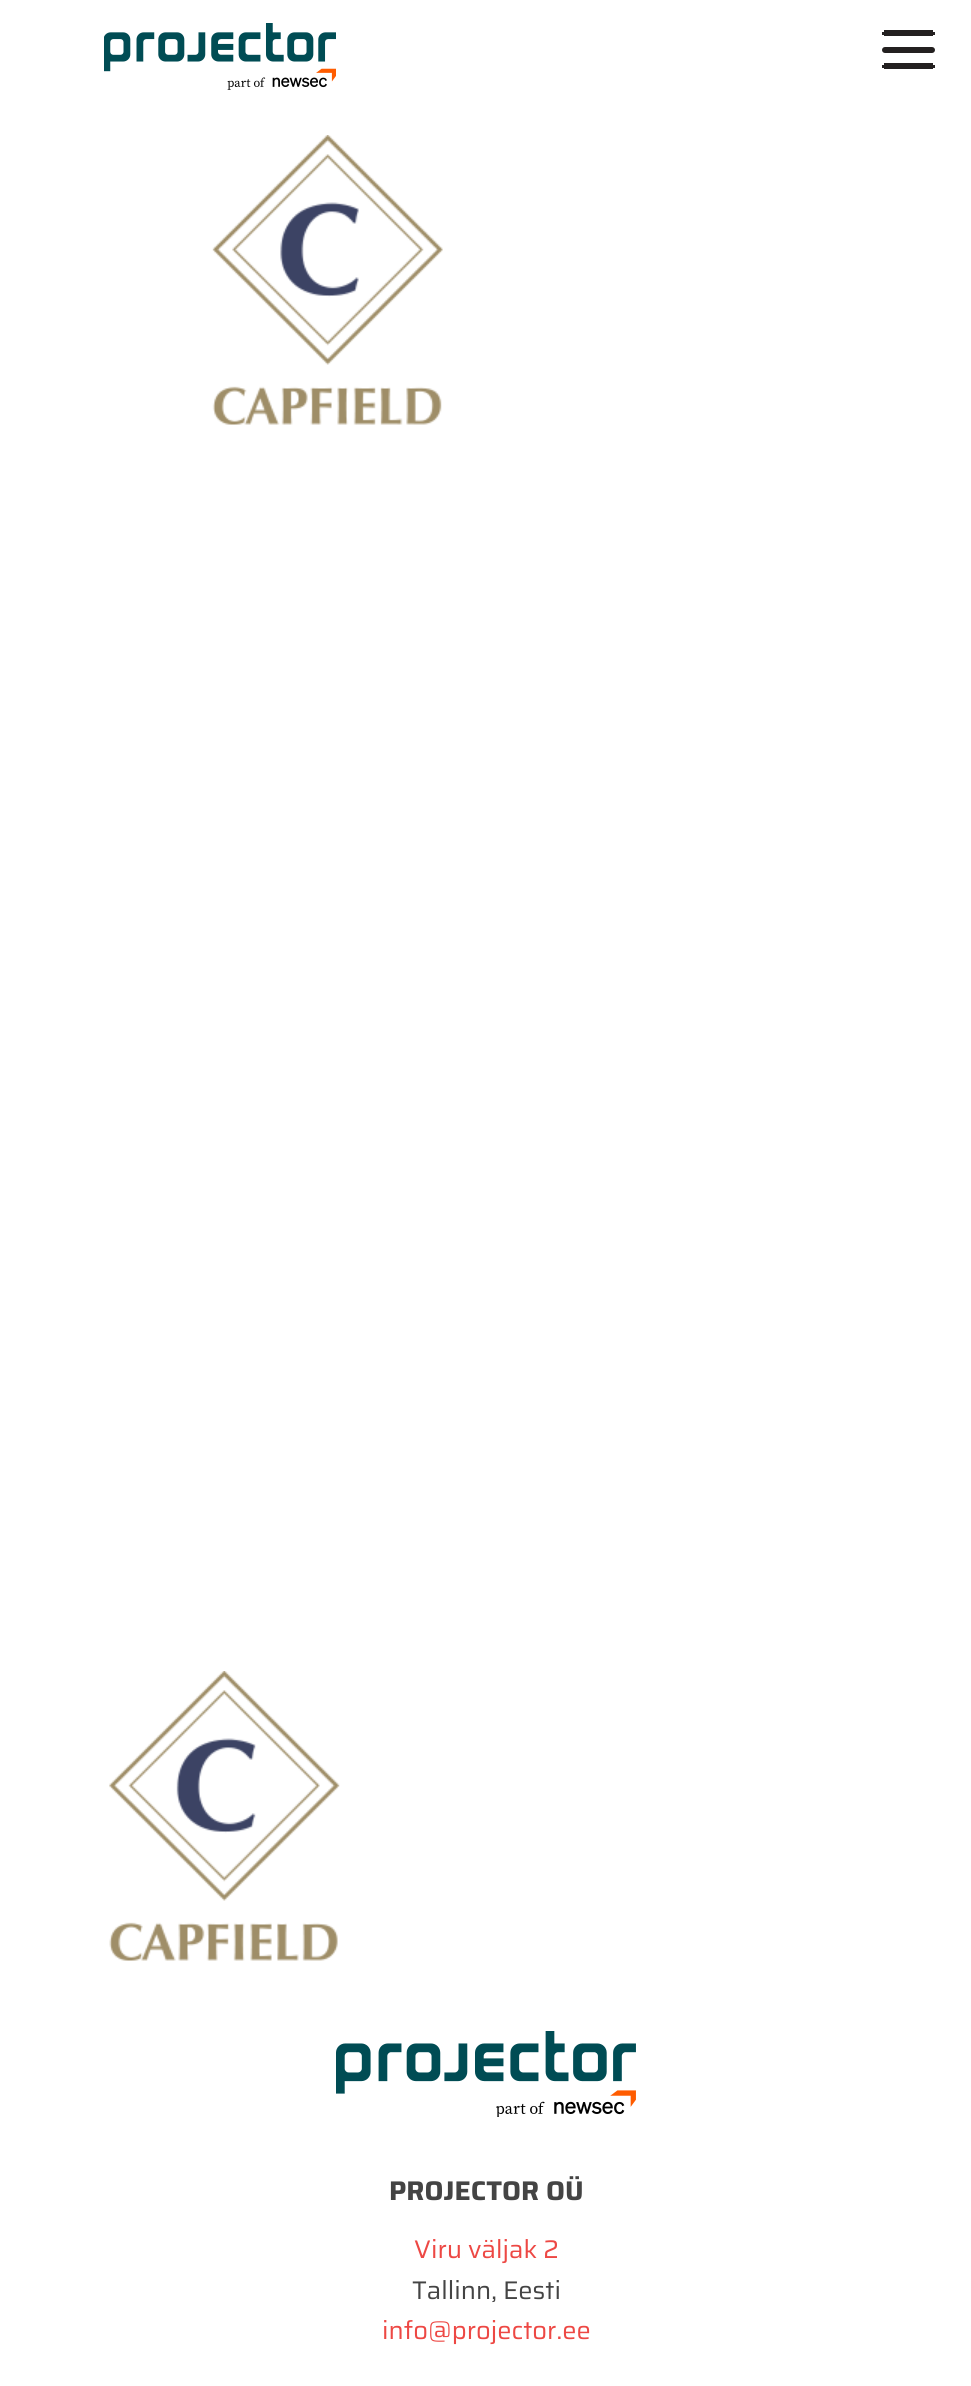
#include <cairo.h>
#include <math.h>
#include <stddef.h>

static cairo_t *ctx;

static void use_color(int r, int g, int b) {
    cairo_set_source_rgb(ctx, r / 255.0, g / 255.0, b / 255.0);
}

static void round_rect(double x, double y, double w, double h, double r) {
    cairo_new_sub_path(ctx);
    cairo_arc(ctx, x + w - r, y + h - r, r, 0, M_PI / 2);
    cairo_arc(ctx, x + r, y + h - r, r, M_PI / 2, M_PI);
    cairo_arc(ctx, x + r, y + r, r, M_PI, 1.5 * M_PI);
    cairo_arc(ctx, x + w - r, y + r, r, 1.5 * M_PI, 2 * M_PI);
    cairo_close_path(ctx);
}

static void picture(const char *path, double x, double y, double w, double h) {
    cairo_surface_t *image = cairo_image_surface_create_from_png(path);
    cairo_save(ctx);
    cairo_set_source_surface(ctx, image, x, y);
    cairo_rectangle(ctx, x, y, w, h);
    cairo_fill(ctx);
    cairo_restore(ctx);
    cairo_surface_destroy(image);
}

int main(void) {
    cairo_surface_t *surface = cairo_image_surface_create(CAIRO_FORMAT_RGB24, 971, 2386);
    ctx = cairo_create(surface);
    cairo_font_options_t *options = cairo_font_options_create();
    cairo_font_options_set_hint_metrics(options, CAIRO_HINT_METRICS_OFF);
    cairo_font_options_set_hint_style(options, CAIRO_HINT_STYLE_NONE);
    cairo_set_font_options(ctx, options);
    cairo_set_miter_limit(ctx, 4);
    use_color(255, 255, 255);
    cairo_paint(ctx);
    picture("img1.png", 104, 23, 232, 67);
    use_color(35, 32, 32);
    cairo_rectangle(ctx, 884, 30, 49, 6);
    cairo_fill(ctx);
    cairo_rectangle(ctx, 929, 32, 6, 3);
    cairo_fill(ctx);
    cairo_rectangle(ctx, 882, 32, 6, 3);
    cairo_fill(ctx);
    round_rect(882, 47, 53, 6, 3);
    cairo_fill(ctx);
    cairo_rectangle(ctx, 929, 65, 6, 3);
    cairo_fill(ctx);
    cairo_rectangle(ctx, 884, 63, 49, 6);
    cairo_fill(ctx);
    cairo_rectangle(ctx, 882, 65, 6, 3);
    cairo_fill(ctx);
    picture("img2.png", 212, 135, 231, 290);
    picture("img3.png", 109, 1671, 231, 290);
    picture("img4.png", 336, 2031, 300, 86);
    cairo_select_font_face(ctx, "Saira", CAIRO_FONT_SLANT_NORMAL, CAIRO_FONT_WEIGHT_BOLD);
    cairo_set_font_size(ctx, 27);
    use_color(68, 68, 68);
    cairo_move_to(ctx, 389, 2200);
    cairo_show_text(ctx, "PROJECTOR OÜ");
    cairo_select_font_face(ctx, "Saira", CAIRO_FONT_SLANT_NORMAL, CAIRO_FONT_WEIGHT_NORMAL);
    cairo_set_font_size(ctx, 25.5);
    use_color(237, 72, 68);
    cairo_move_to(ctx, 414, 2258);
    cairo_show_text(ctx, "Viru väljak 2");
    use_color(68, 68, 68);
    cairo_move_to(ctx, 412, 2299);
    cairo_show_text(ctx, "Tallinn, Eesti");
    use_color(237, 72, 68);
    cairo_move_to(ctx, 382, 2339);
    cairo_show_text(ctx, "info@projector.ee");
    cairo_surface_write_to_png(surface, "result.png");
    cairo_font_options_destroy(options);
    cairo_destroy(ctx);
    cairo_surface_destroy(surface);
    return 0;
}
